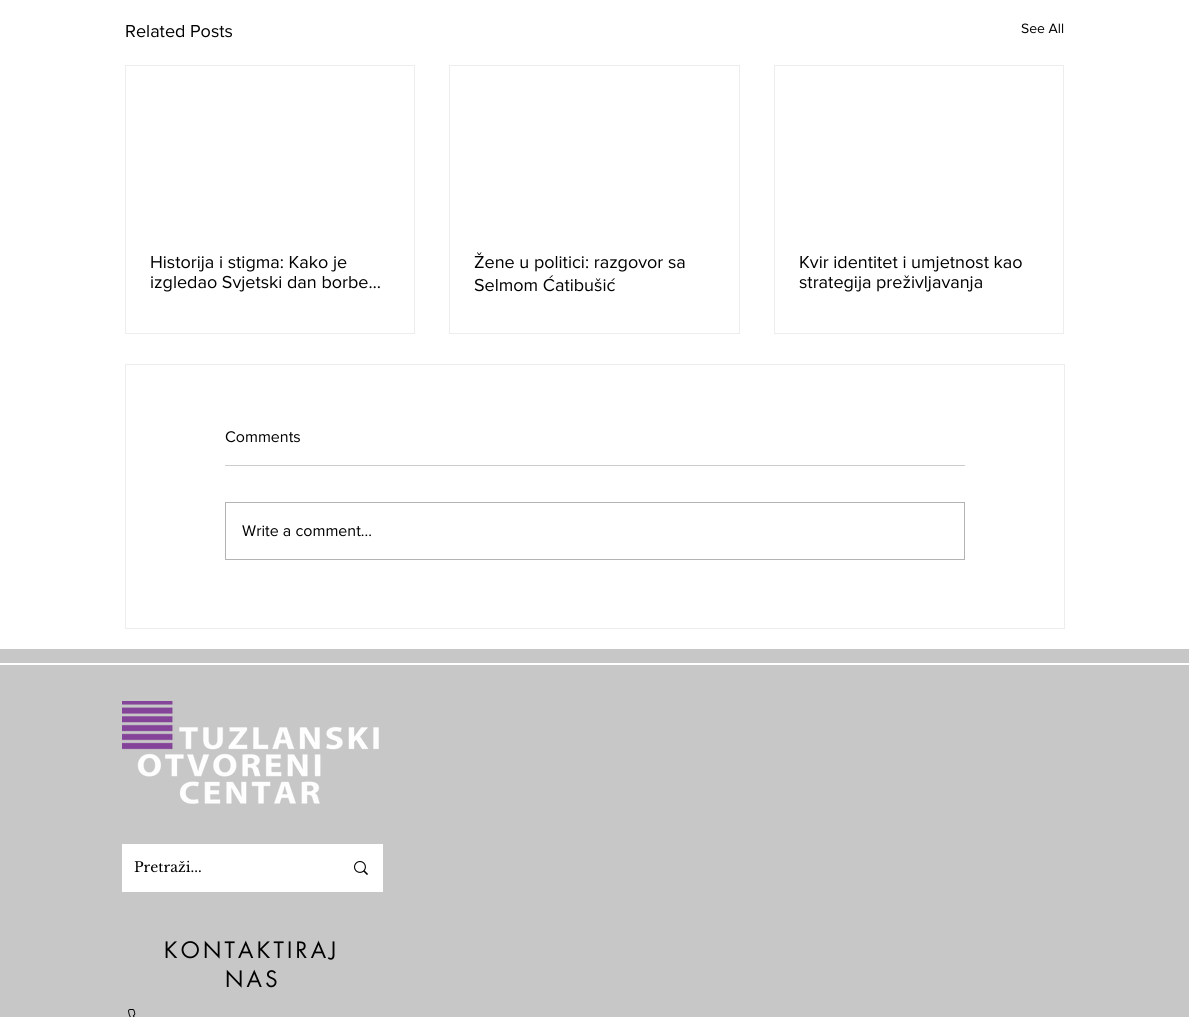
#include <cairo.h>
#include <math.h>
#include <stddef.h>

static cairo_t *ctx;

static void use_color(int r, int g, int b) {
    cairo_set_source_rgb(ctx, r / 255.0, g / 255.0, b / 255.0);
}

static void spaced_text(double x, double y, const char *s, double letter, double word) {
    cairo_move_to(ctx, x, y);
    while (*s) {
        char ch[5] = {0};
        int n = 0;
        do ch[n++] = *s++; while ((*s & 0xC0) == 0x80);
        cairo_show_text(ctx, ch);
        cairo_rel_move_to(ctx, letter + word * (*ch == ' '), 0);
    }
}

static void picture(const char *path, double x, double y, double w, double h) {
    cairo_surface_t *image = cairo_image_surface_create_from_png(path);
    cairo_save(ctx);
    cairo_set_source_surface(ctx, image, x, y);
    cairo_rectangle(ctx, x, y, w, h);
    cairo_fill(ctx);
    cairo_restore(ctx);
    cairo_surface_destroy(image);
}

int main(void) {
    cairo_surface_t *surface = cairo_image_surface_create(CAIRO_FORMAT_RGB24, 1189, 1017);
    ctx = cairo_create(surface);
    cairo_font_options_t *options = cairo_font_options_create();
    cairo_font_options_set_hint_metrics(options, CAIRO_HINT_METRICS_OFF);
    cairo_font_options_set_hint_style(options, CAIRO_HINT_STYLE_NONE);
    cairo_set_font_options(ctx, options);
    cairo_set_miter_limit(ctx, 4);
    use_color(255, 255, 255);
    cairo_paint(ctx);
    cairo_select_font_face(ctx, "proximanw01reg", CAIRO_FONT_SLANT_NORMAL, CAIRO_FONT_WEIGHT_NORMAL);
    cairo_set_font_size(ctx, 18);
    use_color(0, 0, 0);
    cairo_move_to(ctx, 125, 37);
    cairo_show_text(ctx, "Related Posts");
    cairo_set_font_size(ctx, 14);
    cairo_move_to(ctx, 1021, 33);
    cairo_show_text(ctx, "See All");
    cairo_rectangle(ctx, 125.5, 65.5, 289, 268);
    use_color(238, 236, 236);
    cairo_set_line_width(ctx, 1);
    cairo_stroke(ctx);
    cairo_set_font_size(ctx, 18);
    use_color(0, 0, 0);
    cairo_move_to(ctx, 150, 268);
    cairo_show_text(ctx, "Historija i stigma: Kako je");
    cairo_move_to(ctx, 150, 288);
    cairo_show_text(ctx, "izgledao Svjetski dan borbe…");
    cairo_rectangle(ctx, 449.5, 65.5, 290, 268);
    use_color(238, 236, 236);
    cairo_stroke(ctx);
    use_color(0, 0, 0);
    cairo_move_to(ctx, 474, 268);
    cairo_show_text(ctx, "Žene u politici: razgovor sa");
    cairo_move_to(ctx, 474, 291);
    cairo_show_text(ctx, "Selmom Ćatibušić");
    cairo_rectangle(ctx, 774.5, 65.5, 289, 268);
    use_color(238, 236, 236);
    cairo_stroke(ctx);
    use_color(0, 0, 0);
    cairo_move_to(ctx, 799, 268);
    cairo_show_text(ctx, "Kvir identitet i umjetnost kao");
    cairo_move_to(ctx, 799, 288);
    cairo_show_text(ctx, "strategija preživljavanja");
    cairo_rectangle(ctx, 125.5, 364.5, 939, 264);
    use_color(238, 236, 236);
    cairo_stroke(ctx);
    cairo_set_font_size(ctx, 16);
    use_color(0, 0, 0);
    cairo_move_to(ctx, 225, 442);
    cairo_show_text(ctx, "Comments");
    use_color(204, 204, 204);
    cairo_rectangle(ctx, 225, 465, 740, 1);
    cairo_fill(ctx);
    cairo_rectangle(ctx, 225.5, 502.5, 739, 57);
    use_color(179, 179, 179);
    cairo_stroke(ctx);
    use_color(0, 0, 0);
    cairo_move_to(ctx, 242, 536);
    cairo_show_text(ctx, "Write a comment...");
    use_color(199, 199, 199);
    cairo_rectangle(ctx, 0, 649, 1189, 368);
    cairo_fill(ctx);
    use_color(255, 255, 255);
    cairo_rectangle(ctx, 0, 663, 1189, 2);
    cairo_fill(ctx);
    picture("img1.png", 122, 701, 257, 103);
    cairo_rectangle(ctx, 122, 844, 261, 48);
    cairo_fill(ctx);
    cairo_select_font_face(ctx, "Libre Baskerville", CAIRO_FONT_SLANT_NORMAL, CAIRO_FONT_WEIGHT_NORMAL);
    cairo_set_font_size(ctx, 14);
    use_color(0, 0, 0);
    cairo_move_to(ctx, 134, 872);
    cairo_show_text(ctx, "Pretraži...");
    picture("img2.png", 354, 861, 14, 14);
    cairo_select_font_face(ctx, "futura", CAIRO_FONT_SLANT_NORMAL, CAIRO_FONT_WEIGHT_NORMAL);
    cairo_set_font_size(ctx, 22);
    spaced_text(164, 958, "KONTAKTIRAJ", 3.25, 0);
    spaced_text(225, 987, "NAS", 3.25, 0);
    picture("img3.png", 128, 1009, 8, 8);
    cairo_surface_write_to_png(surface, "result.png");
    cairo_font_options_destroy(options);
    cairo_destroy(ctx);
    cairo_surface_destroy(surface);
    return 0;
}
